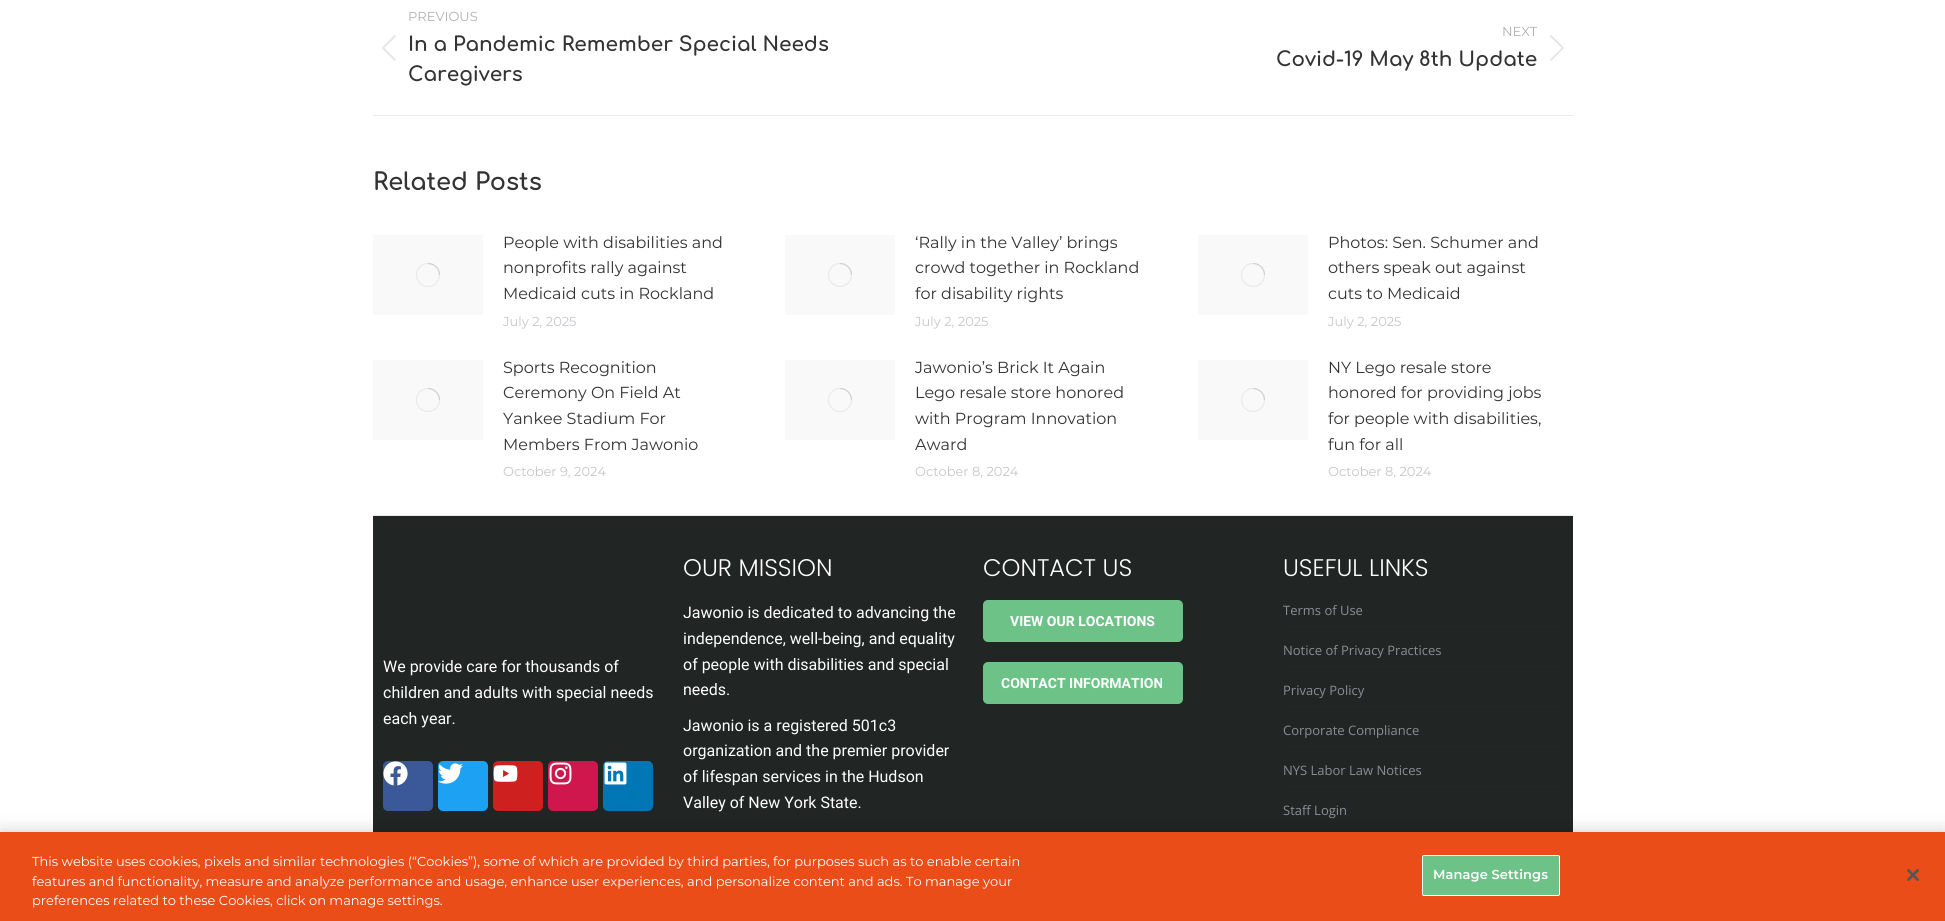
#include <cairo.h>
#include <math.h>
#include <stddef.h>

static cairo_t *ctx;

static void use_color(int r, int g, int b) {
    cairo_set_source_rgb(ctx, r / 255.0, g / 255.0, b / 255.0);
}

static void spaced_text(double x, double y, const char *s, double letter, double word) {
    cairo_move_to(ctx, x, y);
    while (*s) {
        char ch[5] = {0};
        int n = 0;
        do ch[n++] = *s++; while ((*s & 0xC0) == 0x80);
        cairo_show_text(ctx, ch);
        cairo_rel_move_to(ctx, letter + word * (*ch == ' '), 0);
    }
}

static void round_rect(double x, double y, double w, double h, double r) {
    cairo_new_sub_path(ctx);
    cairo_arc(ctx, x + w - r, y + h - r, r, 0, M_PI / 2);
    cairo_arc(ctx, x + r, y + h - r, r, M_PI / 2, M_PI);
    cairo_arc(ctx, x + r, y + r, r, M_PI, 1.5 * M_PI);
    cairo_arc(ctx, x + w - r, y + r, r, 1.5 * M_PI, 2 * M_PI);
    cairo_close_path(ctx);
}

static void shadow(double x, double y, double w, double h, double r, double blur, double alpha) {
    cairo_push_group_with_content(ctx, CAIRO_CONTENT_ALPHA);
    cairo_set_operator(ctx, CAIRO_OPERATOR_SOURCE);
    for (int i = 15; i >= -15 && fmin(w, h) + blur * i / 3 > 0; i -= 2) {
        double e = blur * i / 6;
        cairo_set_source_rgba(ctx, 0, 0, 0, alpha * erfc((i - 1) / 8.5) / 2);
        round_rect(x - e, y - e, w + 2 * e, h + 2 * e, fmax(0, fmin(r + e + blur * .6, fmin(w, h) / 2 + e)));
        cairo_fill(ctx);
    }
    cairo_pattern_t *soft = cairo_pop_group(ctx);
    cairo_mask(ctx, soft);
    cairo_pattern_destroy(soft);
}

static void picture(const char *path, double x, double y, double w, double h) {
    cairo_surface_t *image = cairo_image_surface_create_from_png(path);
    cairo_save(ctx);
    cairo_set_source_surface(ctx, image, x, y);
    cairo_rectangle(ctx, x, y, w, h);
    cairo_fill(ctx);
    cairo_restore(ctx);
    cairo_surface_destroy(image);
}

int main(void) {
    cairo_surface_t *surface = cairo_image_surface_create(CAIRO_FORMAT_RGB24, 1945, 921);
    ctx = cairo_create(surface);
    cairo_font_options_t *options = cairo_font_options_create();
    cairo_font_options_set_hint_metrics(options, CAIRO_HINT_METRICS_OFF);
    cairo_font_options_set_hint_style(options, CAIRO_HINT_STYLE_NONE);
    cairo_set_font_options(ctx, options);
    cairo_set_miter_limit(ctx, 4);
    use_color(255, 255, 255);
    cairo_paint(ctx);
    use_color(235, 235, 235);
    cairo_rectangle(ctx, 373, 115, 1200, 1);
    cairo_fill(ctx);
    cairo_select_font_face(ctx, "Montserrat", CAIRO_FONT_SLANT_NORMAL, CAIRO_FONT_WEIGHT_NORMAL);
    cairo_set_font_size(ctx, 13);
    use_color(173, 175, 179);
    cairo_move_to(ctx, 408, 21);
    cairo_show_text(ctx, "PREVIOUS");
    picture("img1.png", 382, 35, 14, 26);
    cairo_select_font_face(ctx, "Comfortaa", CAIRO_FONT_SLANT_NORMAL, CAIRO_FONT_WEIGHT_BOLD);
    cairo_set_font_size(ctx, 20);
    use_color(51, 51, 51);
    cairo_move_to(ctx, 408, 51);
    cairo_show_text(ctx, "In a Pandemic Remember Special Needs");
    cairo_move_to(ctx, 408, 81);
    cairo_show_text(ctx, "Caregivers");
    cairo_select_font_face(ctx, "Montserrat", CAIRO_FONT_SLANT_NORMAL, CAIRO_FONT_WEIGHT_NORMAL);
    cairo_set_font_size(ctx, 13);
    use_color(173, 175, 179);
    cairo_move_to(ctx, 1502, 36);
    cairo_show_text(ctx, "NEXT");
    cairo_select_font_face(ctx, "Comfortaa", CAIRO_FONT_SLANT_NORMAL, CAIRO_FONT_WEIGHT_BOLD);
    cairo_set_font_size(ctx, 20);
    use_color(51, 51, 51);
    cairo_move_to(ctx, 1276, 66);
    cairo_show_text(ctx, "Covid-19 May 8th Update");
    picture("img2.png", 1550, 35, 14, 26);
    use_color(235, 235, 235);
    cairo_rectangle(ctx, 373, 515, 1200, 1);
    cairo_fill(ctx);
    cairo_set_font_size(ctx, 24);
    use_color(51, 51, 51);
    cairo_move_to(ctx, 373, 190);
    cairo_show_text(ctx, "Related Posts");
    use_color(249, 249, 250);
    cairo_rectangle(ctx, 373, 235, 110, 80);
    cairo_fill(ctx);
    cairo_save(ctx);
    cairo_rectangle(ctx, 416, 263, 24, 24);
    cairo_clip(ctx);
    cairo_arc(ctx, 428, 275, 11.5, 0, 2 * M_PI);
    use_color(234, 234, 236);
    cairo_set_line_width(ctx, 1.3);
    cairo_stroke(ctx);
    cairo_restore(ctx);
    cairo_new_path(ctx);
    cairo_move_to(ctx, 439.5, 275);
    cairo_curve_to(ctx, 439.5, 268.5, 434.5, 263.5, 428, 263.5);
    cairo_set_source_rgba(ctx, 0.545, 0.553, 0.58, 0.25);
    cairo_set_line_width(ctx, 1.3);
    cairo_stroke(ctx);
    cairo_select_font_face(ctx, "Montserrat", CAIRO_FONT_SLANT_NORMAL, CAIRO_FONT_WEIGHT_NORMAL);
    cairo_set_font_size(ctx, 16);
    use_color(51, 51, 51);
    cairo_move_to(ctx, 503, 248);
    cairo_show_text(ctx, "People with disabilities and");
    cairo_move_to(ctx, 503, 273);
    cairo_show_text(ctx, "nonprofits rally against");
    cairo_move_to(ctx, 503, 299);
    cairo_show_text(ctx, "Medicaid cuts in Rockland");
    cairo_set_font_size(ctx, 13);
    use_color(197, 198, 202);
    cairo_move_to(ctx, 503, 326);
    cairo_show_text(ctx, "July 2, 2025");
    use_color(249, 249, 250);
    cairo_rectangle(ctx, 785, 235, 110, 80);
    cairo_fill(ctx);
    cairo_save(ctx);
    cairo_rectangle(ctx, 828, 263, 24, 24);
    cairo_clip(ctx);
    cairo_arc(ctx, 840, 275, 11.5, 0, 2 * M_PI);
    use_color(234, 234, 236);
    cairo_stroke(ctx);
    cairo_restore(ctx);
    cairo_new_path(ctx);
    cairo_move_to(ctx, 851.5, 275);
    cairo_curve_to(ctx, 851.5, 268.5, 846.5, 263.5, 840, 263.5);
    cairo_set_source_rgba(ctx, 0.545, 0.553, 0.58, 0.25);
    cairo_stroke(ctx);
    cairo_set_font_size(ctx, 16);
    use_color(51, 51, 51);
    cairo_move_to(ctx, 915, 248);
    cairo_show_text(ctx, "‘Rally in the Valley’ brings");
    cairo_move_to(ctx, 915, 273);
    cairo_show_text(ctx, "crowd together in Rockland");
    cairo_move_to(ctx, 915, 299);
    cairo_show_text(ctx, "for disability rights");
    cairo_set_font_size(ctx, 13);
    use_color(197, 198, 202);
    cairo_move_to(ctx, 915, 326);
    cairo_show_text(ctx, "July 2, 2025");
    use_color(249, 249, 250);
    cairo_rectangle(ctx, 1198, 235, 110, 80);
    cairo_fill(ctx);
    cairo_save(ctx);
    cairo_rectangle(ctx, 1241, 263, 24, 24);
    cairo_clip(ctx);
    cairo_arc(ctx, 1253, 275, 11.5, 0, 2 * M_PI);
    use_color(234, 234, 236);
    cairo_stroke(ctx);
    cairo_restore(ctx);
    cairo_new_path(ctx);
    cairo_move_to(ctx, 1264.5, 275);
    cairo_curve_to(ctx, 1264.5, 268.5, 1259.5, 263.5, 1253, 263.5);
    cairo_set_source_rgba(ctx, 0.545, 0.553, 0.58, 0.25);
    cairo_stroke(ctx);
    cairo_set_font_size(ctx, 16);
    use_color(51, 51, 51);
    cairo_move_to(ctx, 1328, 248);
    cairo_show_text(ctx, "Photos: Sen. Schumer and");
    cairo_move_to(ctx, 1328, 273);
    cairo_show_text(ctx, "others speak out against");
    cairo_move_to(ctx, 1328, 299);
    cairo_show_text(ctx, "cuts to Medicaid");
    cairo_set_font_size(ctx, 13);
    use_color(197, 198, 202);
    cairo_move_to(ctx, 1328, 326);
    cairo_show_text(ctx, "July 2, 2025");
    use_color(249, 249, 250);
    cairo_rectangle(ctx, 373, 360, 110, 80);
    cairo_fill(ctx);
    cairo_save(ctx);
    cairo_rectangle(ctx, 416, 388, 24, 24);
    cairo_clip(ctx);
    cairo_arc(ctx, 428, 400, 11.5, 0, 2 * M_PI);
    use_color(234, 234, 236);
    cairo_stroke(ctx);
    cairo_restore(ctx);
    cairo_new_path(ctx);
    cairo_move_to(ctx, 439.5, 400);
    cairo_curve_to(ctx, 439.5, 393.5, 434.5, 388.5, 428, 388.5);
    cairo_set_source_rgba(ctx, 0.545, 0.553, 0.58, 0.25);
    cairo_stroke(ctx);
    cairo_set_font_size(ctx, 16);
    use_color(51, 51, 51);
    cairo_move_to(ctx, 503, 373);
    cairo_show_text(ctx, "Sports Recognition");
    cairo_move_to(ctx, 503, 398);
    cairo_show_text(ctx, "Ceremony On Field At");
    cairo_move_to(ctx, 503, 424);
    cairo_show_text(ctx, "Yankee Stadium For");
    cairo_move_to(ctx, 503, 450);
    cairo_show_text(ctx, "Members From Jawonio");
    cairo_set_font_size(ctx, 13);
    use_color(197, 198, 202);
    cairo_move_to(ctx, 503, 476);
    cairo_show_text(ctx, "October 9, 2024");
    use_color(249, 249, 250);
    cairo_rectangle(ctx, 785, 360, 110, 80);
    cairo_fill(ctx);
    cairo_save(ctx);
    cairo_rectangle(ctx, 828, 388, 24, 24);
    cairo_clip(ctx);
    cairo_arc(ctx, 840, 400, 11.5, 0, 2 * M_PI);
    use_color(234, 234, 236);
    cairo_stroke(ctx);
    cairo_restore(ctx);
    cairo_new_path(ctx);
    cairo_move_to(ctx, 851.5, 400);
    cairo_curve_to(ctx, 851.5, 393.5, 846.5, 388.5, 840, 388.5);
    cairo_set_source_rgba(ctx, 0.545, 0.553, 0.58, 0.25);
    cairo_stroke(ctx);
    cairo_set_font_size(ctx, 16);
    use_color(51, 51, 51);
    cairo_move_to(ctx, 915, 373);
    cairo_show_text(ctx, "Jawonio’s Brick It Again");
    cairo_move_to(ctx, 915, 398);
    cairo_show_text(ctx, "Lego resale store honored");
    cairo_move_to(ctx, 915, 424);
    cairo_show_text(ctx, "with Program Innovation");
    cairo_move_to(ctx, 915, 450);
    cairo_show_text(ctx, "Award");
    cairo_set_font_size(ctx, 13);
    use_color(197, 198, 202);
    cairo_move_to(ctx, 915, 476);
    cairo_show_text(ctx, "October 8, 2024");
    use_color(249, 249, 250);
    cairo_rectangle(ctx, 1198, 360, 110, 80);
    cairo_fill(ctx);
    cairo_save(ctx);
    cairo_rectangle(ctx, 1241, 388, 24, 24);
    cairo_clip(ctx);
    cairo_arc(ctx, 1253, 400, 11.5, 0, 2 * M_PI);
    use_color(234, 234, 236);
    cairo_stroke(ctx);
    cairo_restore(ctx);
    cairo_new_path(ctx);
    cairo_move_to(ctx, 1264.5, 400);
    cairo_curve_to(ctx, 1264.5, 393.5, 1259.5, 388.5, 1253, 388.5);
    cairo_set_source_rgba(ctx, 0.545, 0.553, 0.58, 0.25);
    cairo_stroke(ctx);
    cairo_set_font_size(ctx, 16);
    use_color(51, 51, 51);
    cairo_move_to(ctx, 1328, 373);
    cairo_show_text(ctx, "NY Lego resale store");
    cairo_move_to(ctx, 1328, 398);
    cairo_show_text(ctx, "honored for providing jobs");
    cairo_move_to(ctx, 1328, 424);
    cairo_show_text(ctx, "for people with disabilities,");
    cairo_move_to(ctx, 1328, 450);
    cairo_show_text(ctx, "fun for all");
    cairo_set_font_size(ctx, 13);
    use_color(197, 198, 202);
    cairo_move_to(ctx, 1328, 476);
    cairo_show_text(ctx, "October 8, 2024");
    use_color(33, 37, 35);
    cairo_rectangle(ctx, 373, 516, 1200, 316);
    cairo_fill(ctx);
    cairo_select_font_face(ctx, "Roboto", CAIRO_FONT_SLANT_NORMAL, CAIRO_FONT_WEIGHT_NORMAL);
    cairo_set_font_size(ctx, 16);
    use_color(255, 255, 255);
    cairo_move_to(ctx, 383, 672);
    cairo_show_text(ctx, "We provide care for thousands of");
    cairo_move_to(ctx, 383, 698);
    cairo_show_text(ctx, "children and adults with special needs");
    cairo_move_to(ctx, 383, 724);
    cairo_show_text(ctx, "each year.");
    use_color(59, 89, 152);
    round_rect(383, 761, 50, 50, 5);
    cairo_fill(ctx);
    picture("img3.png", 383, 761, 25, 25);
    use_color(29, 161, 242);
    round_rect(438, 761, 50, 50, 5);
    cairo_fill(ctx);
    picture("img4.png", 438, 763, 25, 21);
    use_color(205, 32, 31);
    round_rect(493, 761, 50, 50, 5);
    cairo_fill(ctx);
    picture("img5.png", 493, 765, 25, 17);
    use_color(207, 22, 77);
    round_rect(548, 761, 50, 50, 5);
    cairo_fill(ctx);
    picture("img6.png", 549, 762, 23, 23);
    use_color(0, 119, 181);
    round_rect(603, 761, 50, 50, 5);
    cairo_fill(ctx);
    picture("img7.png", 604, 762, 23, 23);
    cairo_select_font_face(ctx, "Poppins Light", CAIRO_FONT_SLANT_NORMAL, CAIRO_FONT_WEIGHT_NORMAL);
    cairo_set_font_size(ctx, 24);
    use_color(255, 255, 255);
    cairo_move_to(ctx, 683, 576);
    cairo_show_text(ctx, "OUR MISSION");
    cairo_select_font_face(ctx, "Roboto", CAIRO_FONT_SLANT_NORMAL, CAIRO_FONT_WEIGHT_NORMAL);
    cairo_set_font_size(ctx, 16);
    cairo_move_to(ctx, 683, 618);
    cairo_show_text(ctx, "Jawonio is dedicated to advancing the");
    cairo_move_to(ctx, 683, 644);
    cairo_show_text(ctx, "independence, well-being, and equality");
    cairo_move_to(ctx, 683, 670);
    cairo_show_text(ctx, "of people with disabilities and special");
    cairo_move_to(ctx, 683, 695);
    cairo_show_text(ctx, "needs.");
    cairo_move_to(ctx, 683, 731);
    cairo_show_text(ctx, "Jawonio is a registered 501c3");
    cairo_move_to(ctx, 683, 756);
    cairo_show_text(ctx, "organization and the premier provider");
    cairo_move_to(ctx, 683, 782);
    cairo_show_text(ctx, "of lifespan services in the Hudson");
    cairo_move_to(ctx, 683, 808);
    cairo_show_text(ctx, "Valley of New York State.");
    cairo_select_font_face(ctx, "Poppins Light", CAIRO_FONT_SLANT_NORMAL, CAIRO_FONT_WEIGHT_NORMAL);
    cairo_set_font_size(ctx, 24);
    cairo_move_to(ctx, 983, 576);
    cairo_show_text(ctx, "CONTACT US");
    use_color(109, 194, 136);
    round_rect(983, 600, 200, 42, 5);
    cairo_fill(ctx);
    cairo_select_font_face(ctx, "Roboto", CAIRO_FONT_SLANT_NORMAL, CAIRO_FONT_WEIGHT_BOLD);
    cairo_set_font_size(ctx, 14);
    use_color(255, 255, 255);
    cairo_move_to(ctx, 1010, 626);
    cairo_show_text(ctx, "VIEW OUR LOCATIONS");
    use_color(109, 194, 136);
    round_rect(983, 662, 200, 42, 5);
    cairo_fill(ctx);
    use_color(255, 255, 255);
    cairo_move_to(ctx, 1001, 688);
    cairo_show_text(ctx, "CONTACT INFORMATION");
    cairo_select_font_face(ctx, "Poppins Light", CAIRO_FONT_SLANT_NORMAL, CAIRO_FONT_WEIGHT_NORMAL);
    cairo_set_font_size(ctx, 24);
    cairo_move_to(ctx, 1283, 576);
    cairo_show_text(ctx, "USEFUL LINKS");
    cairo_select_font_face(ctx, "Open Sans", CAIRO_FONT_SLANT_NORMAL, CAIRO_FONT_WEIGHT_NORMAL);
    cairo_set_font_size(ctx, 13);
    use_color(139, 141, 148);
    cairo_move_to(ctx, 1283, 615);
    cairo_show_text(ctx, "Terms of Use");
    use_color(30, 34, 32);
    cairo_rectangle(ctx, 1283, 629, 280, 1);
    cairo_fill(ctx);
    use_color(139, 141, 148);
    cairo_move_to(ctx, 1283, 655);
    cairo_show_text(ctx, "Notice of Privacy Practices");
    use_color(30, 34, 32);
    cairo_rectangle(ctx, 1283, 669, 280, 1);
    cairo_fill(ctx);
    use_color(139, 141, 148);
    cairo_move_to(ctx, 1283, 695);
    cairo_show_text(ctx, "Privacy Policy");
    use_color(30, 34, 32);
    cairo_rectangle(ctx, 1283, 709, 280, 1);
    cairo_fill(ctx);
    use_color(139, 141, 148);
    cairo_move_to(ctx, 1283, 735);
    cairo_show_text(ctx, "Corporate Compliance");
    use_color(30, 34, 32);
    cairo_rectangle(ctx, 1283, 749, 280, 1);
    cairo_fill(ctx);
    use_color(139, 141, 148);
    cairo_move_to(ctx, 1283, 775);
    cairo_show_text(ctx, "NYS Labor Law Notices");
    use_color(30, 34, 32);
    cairo_rectangle(ctx, 1283, 789, 280, 1);
    cairo_fill(ctx);
    use_color(139, 141, 148);
    cairo_move_to(ctx, 1283, 815);
    cairo_show_text(ctx, "Staff Login");
    use_color(0, 0, 0);
    shadow(0, 832, 1945, 89, 0, 9, 0.2);
    use_color(235, 77, 25);
    cairo_rectangle(ctx, 0, 832, 1945, 89);
    cairo_fill(ctx);
    cairo_select_font_face(ctx, "Montserrat", CAIRO_FONT_SLANT_NORMAL, CAIRO_FONT_WEIGHT_NORMAL);
    use_color(255, 255, 255);
    cairo_move_to(ctx, 32, 866);
    cairo_show_text(ctx, "This website uses cookies, pixels and similar technologies (“Cookies”), some of which are provided by third parties, for purposes such as to enable certain");
    cairo_move_to(ctx, 32, 886);
    cairo_show_text(ctx, "features and functionality, measure and analyze performance and usage, enhance user experiences, and personalize content and ads. To manage your");
    cairo_move_to(ctx, 32, 905);
    cairo_show_text(ctx, "preferences related to these Cookies, click on manage settings.");
    use_color(109, 194, 136);
    round_rect(1422.5, 855.5, 137, 40, 1.5);
    cairo_fill_preserve(ctx);
    use_color(255, 255, 255);
    cairo_set_line_width(ctx, 1);
    cairo_stroke(ctx);
    cairo_select_font_face(ctx, "Montserrat SemiBold", CAIRO_FONT_SLANT_NORMAL, CAIRO_FONT_WEIGHT_NORMAL);
    spaced_text(1433, 879, "Manage Settings", 0.1, 0);
    picture("img8.png", 1907, 869, 12, 12);
    cairo_surface_write_to_png(surface, "result.png");
    cairo_font_options_destroy(options);
    cairo_destroy(ctx);
    cairo_surface_destroy(surface);
    return 0;
}
